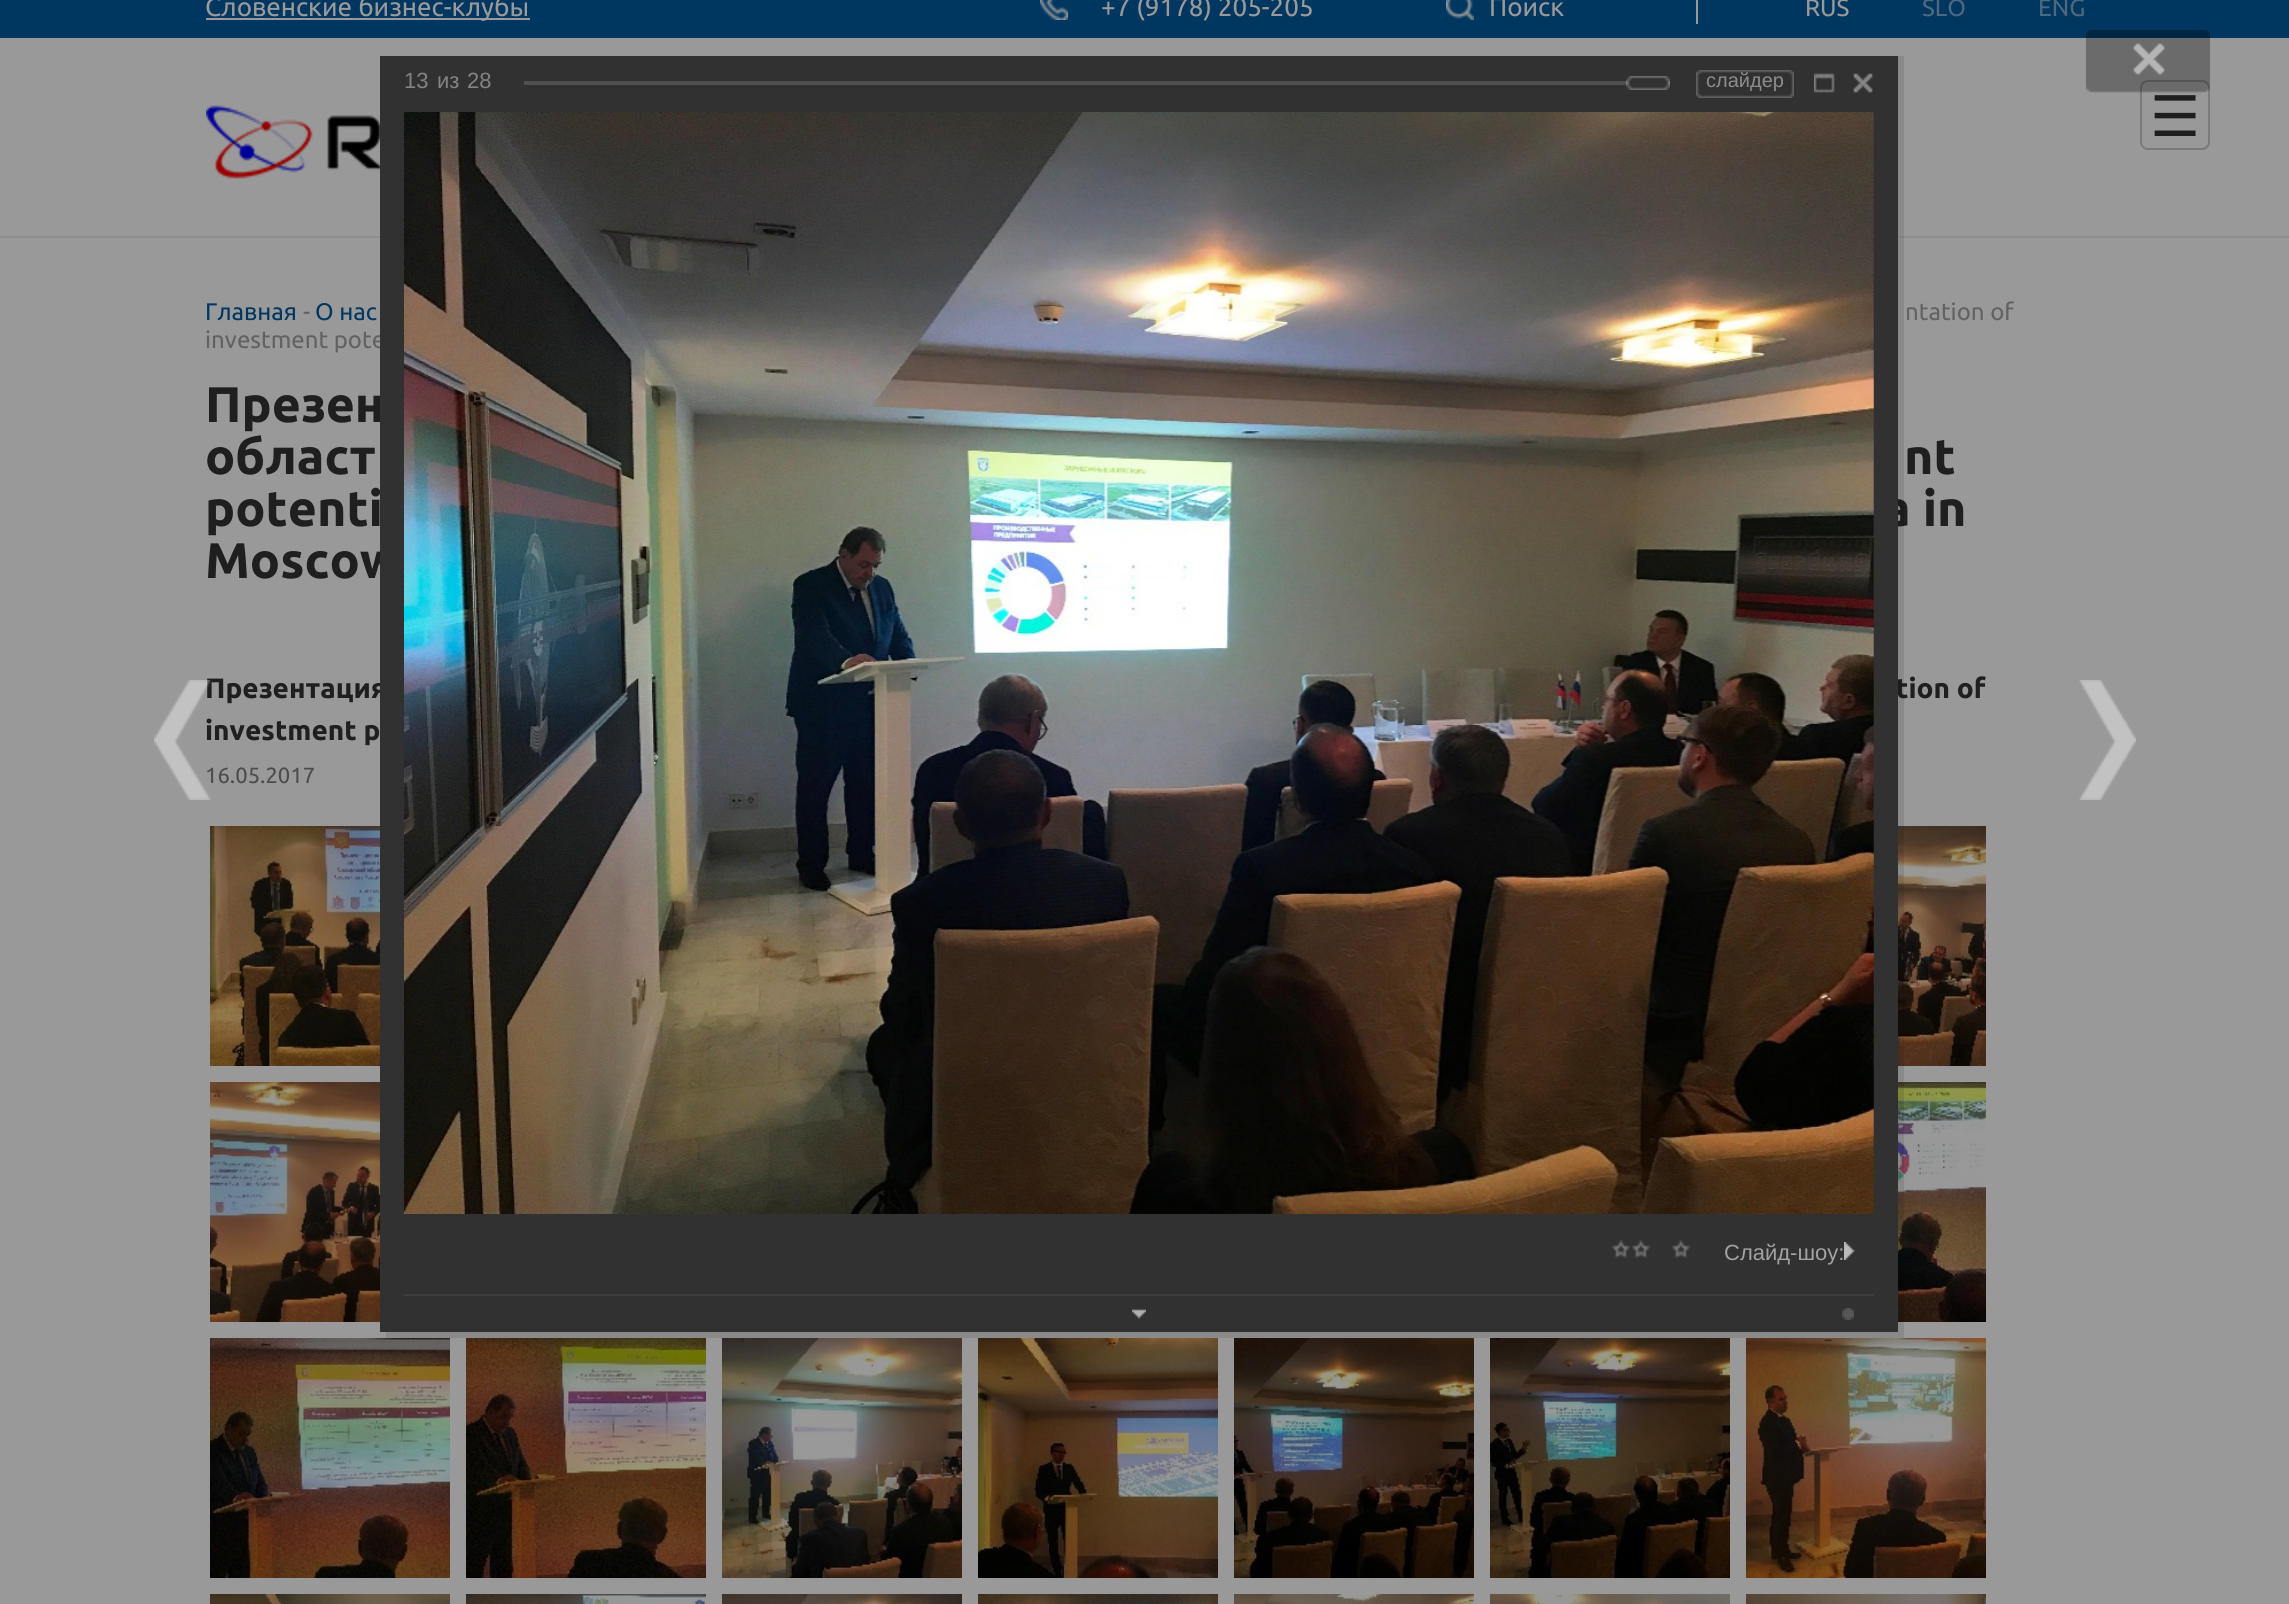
#include <cairo.h>
#include <math.h>
#include <stddef.h>

static cairo_t *ctx;

static void use_color(int r, int g, int b) {
    cairo_set_source_rgb(ctx, r / 255.0, g / 255.0, b / 255.0);
}

static void round_rect(double x, double y, double w, double h, double r) {
    cairo_new_sub_path(ctx);
    cairo_arc(ctx, x + w - r, y + h - r, r, 0, M_PI / 2);
    cairo_arc(ctx, x + r, y + h - r, r, M_PI / 2, M_PI);
    cairo_arc(ctx, x + r, y + r, r, M_PI, 1.5 * M_PI);
    cairo_arc(ctx, x + w - r, y + r, r, 1.5 * M_PI, 2 * M_PI);
    cairo_close_path(ctx);
}

static void picture(const char *path, double x, double y, double w, double h) {
    cairo_surface_t *image = cairo_image_surface_create_from_png(path);
    cairo_save(ctx);
    cairo_set_source_surface(ctx, image, x, y);
    cairo_rectangle(ctx, x, y, w, h);
    cairo_fill(ctx);
    cairo_restore(ctx);
    cairo_surface_destroy(image);
}

int main(void) {
    cairo_surface_t *surface = cairo_image_surface_create(CAIRO_FORMAT_RGB24, 2289, 1604);
    ctx = cairo_create(surface);
    cairo_font_options_t *options = cairo_font_options_create();
    cairo_font_options_set_hint_metrics(options, CAIRO_HINT_METRICS_OFF);
    cairo_font_options_set_hint_style(options, CAIRO_HINT_STYLE_NONE);
    cairo_set_font_options(ctx, options);
    cairo_set_miter_limit(ctx, 4);
    use_color(153, 153, 153);
    cairo_paint(ctx);
    use_color(0, 55, 97);
    cairo_rectangle(ctx, 0, 0, 2289, 38);
    cairo_fill(ctx);
    use_color(153, 153, 153);
    cairo_rectangle(ctx, 206, 18, 324, 2);
    cairo_fill(ctx);
    cairo_select_font_face(ctx, "Ubuntu", CAIRO_FONT_SLANT_NORMAL, CAIRO_FONT_WEIGHT_NORMAL);
    cairo_set_font_size(ctx, 26);
    cairo_move_to(ctx, 205, 16);
    cairo_show_text(ctx, "Словенские бизнес-клубы");
    picture("img1.png", 1040, 0, 28, 20);
    cairo_move_to(ctx, 1101, 16);
    cairo_show_text(ctx, "+7 (9178) 205-205");
    picture("img2.png", 1446, 0, 28, 20);
    cairo_move_to(ctx, 1489, 16);
    cairo_show_text(ctx, "Поиск");
    cairo_rectangle(ctx, 1696, 0, 2, 24);
    cairo_fill(ctx);
    cairo_set_font_size(ctx, 24);
    cairo_move_to(ctx, 1805, 16);
    cairo_show_text(ctx, "RUS");
    use_color(77, 104, 125);
    cairo_move_to(ctx, 1922, 16);
    cairo_show_text(ctx, "SLO");
    cairo_move_to(ctx, 2038, 16);
    cairo_show_text(ctx, "ENG");
    use_color(143, 143, 143);
    cairo_rectangle(ctx, 0, 236, 2289, 2);
    cairo_fill(ctx);
    picture("img3.png", 206, 105, 174, 74);
    use_color(0, 55, 97);
    cairo_move_to(ctx, 205, 320);
    cairo_show_text(ctx, "Главная");
    use_color(98, 98, 98);
    cairo_move_to(ctx, 303, 320);
    cairo_show_text(ctx, "-");
    use_color(0, 55, 97);
    cairo_move_to(ctx, 315, 320);
    cairo_show_text(ctx, "О нас");
    use_color(98, 98, 98);
    cairo_move_to(ctx, 1905, 320);
    cairo_show_text(ctx, "ntation of");
    cairo_move_to(ctx, 205, 348);
    cairo_show_text(ctx, "investment pote");
    cairo_select_font_face(ctx, "Ubuntu", CAIRO_FONT_SLANT_NORMAL, CAIRO_FONT_WEIGHT_BOLD);
    cairo_set_font_size(ctx, 50);
    use_color(31, 31, 31);
    cairo_move_to(ctx, 205, 422);
    cairo_show_text(ctx, "Презен");
    cairo_move_to(ctx, 205, 474);
    cairo_show_text(ctx, "област");
    cairo_move_to(ctx, 1904, 474);
    cairo_show_text(ctx, "nt");
    cairo_move_to(ctx, 205, 526);
    cairo_show_text(ctx, "potenti");
    cairo_move_to(ctx, 1883, 526);
    cairo_show_text(ctx, "a in");
    cairo_move_to(ctx, 205, 578);
    cairo_show_text(ctx, "Moscow");
    cairo_set_font_size(ctx, 28);
    cairo_move_to(ctx, 205, 698);
    cairo_show_text(ctx, "Презентация");
    cairo_move_to(ctx, 1896, 698);
    cairo_show_text(ctx, "tion of");
    cairo_move_to(ctx, 205, 740);
    cairo_show_text(ctx, "investment p");
    cairo_select_font_face(ctx, "Ubuntu", CAIRO_FONT_SLANT_NORMAL, CAIRO_FONT_WEIGHT_NORMAL);
    cairo_set_font_size(ctx, 22);
    use_color(76, 76, 76);
    cairo_move_to(ctx, 205, 783);
    cairo_show_text(ctx, "16.05.2017");
    picture("img4.png", 210, 826, 170, 240);
    picture("img5.png", 1898, 826, 88, 240);
    picture("img6.png", 210, 1082, 170, 240);
    picture("img7.png", 1898, 1082, 88, 240);
    picture("img8.png", 210, 1338, 240, 240);
    picture("img9.png", 466, 1338, 240, 240);
    picture("img10.png", 722, 1338, 240, 240);
    picture("img11.png", 978, 1338, 240, 240);
    picture("img12.png", 1234, 1338, 240, 240);
    picture("img13.png", 1490, 1338, 240, 240);
    picture("img14.png", 1746, 1338, 240, 240);
    picture("img15.png", 210, 1594, 240, 10);
    picture("img16.png", 466, 1594, 240, 10);
    picture("img17.png", 722, 1594, 240, 10);
    picture("img18.png", 978, 1594, 240, 10);
    picture("img19.png", 1234, 1594, 240, 10);
    picture("img20.png", 1490, 1594, 240, 10);
    picture("img21.png", 1746, 1594, 240, 10);
    picture("img22.png", 154, 680, 57, 120);
    cairo_set_source_rgba(ctx, 0, 0, 0, 0.1);
    cairo_rectangle(ctx, 386, 56, 1518, 1282);
    cairo_fill(ctx);
    use_color(49, 49, 49);
    cairo_rectangle(ctx, 380, 56, 1518, 1276);
    cairo_fill(ctx);
    cairo_select_font_face(ctx, "Liberation Sans", CAIRO_FONT_SLANT_NORMAL, CAIRO_FONT_WEIGHT_NORMAL);
    use_color(131, 131, 131);
    cairo_move_to(ctx, 404, 88);
    cairo_show_text(ctx, "13");
    cairo_move_to(ctx, 437, 88);
    cairo_show_text(ctx, "из");
    cairo_move_to(ctx, 467, 88);
    cairo_show_text(ctx, "28");
    use_color(80, 80, 80);
    cairo_rectangle(ctx, 524, 81, 1102, 4);
    cairo_fill(ctx);
    picture("img23.png", 1626, 76, 44, 14);
    picture("img24.png", 1696, 70, 92, 28);
    cairo_set_font_size(ctx, 20);
    use_color(140, 140, 140);
    cairo_move_to(ctx, 1706, 87);
    cairo_show_text(ctx, "слайдер");
    picture("img25.png", 1788, 70, 6, 28);
    picture("img26.png", 1814, 73, 21, 20);
    picture("img27.png", 1853, 73, 20, 20);
    picture("img28.png", 404, 112, 1470, 1102);
    use_color(61, 61, 61);
    cairo_rectangle(ctx, 404, 1294, 1470, 2);
    cairo_fill(ctx);
    picture("img29.png", 1612, 1240, 18, 18);
    picture("img29.png", 1632, 1240, 18, 18);
    picture("img29.png", 1672, 1240, 18, 18);
    cairo_set_font_size(ctx, 22);
    use_color(162, 162, 162);
    cairo_move_to(ctx, 1724, 1260);
    cairo_show_text(ctx, "Слайд-шоу:");
    picture("img30.png", 1844, 1242, 11, 18);
    picture("img31.png", 1132, 1309, 14, 10);
    picture("img32.png", 1842, 1308, 12, 12);
    round_rect(2141, 81, 68, 68, 7);
    use_color(122, 122, 122);
    cairo_stroke(ctx);
    picture("img33.png", 2086, 30, 124, 63);
    picture("img34.png", 2079, 680, 57, 120);
    cairo_select_font_face(ctx, "DejaVu Sans", CAIRO_FONT_SLANT_NORMAL, CAIRO_FONT_WEIGHT_NORMAL);
    cairo_set_font_size(ctx, 56);
    use_color(31, 31, 31);
    cairo_move_to(ctx, 2150, 136);
    cairo_show_text(ctx, "☰");
    cairo_surface_write_to_png(surface, "result.png");
    cairo_font_options_destroy(options);
    cairo_destroy(ctx);
    cairo_surface_destroy(surface);
    return 0;
}
